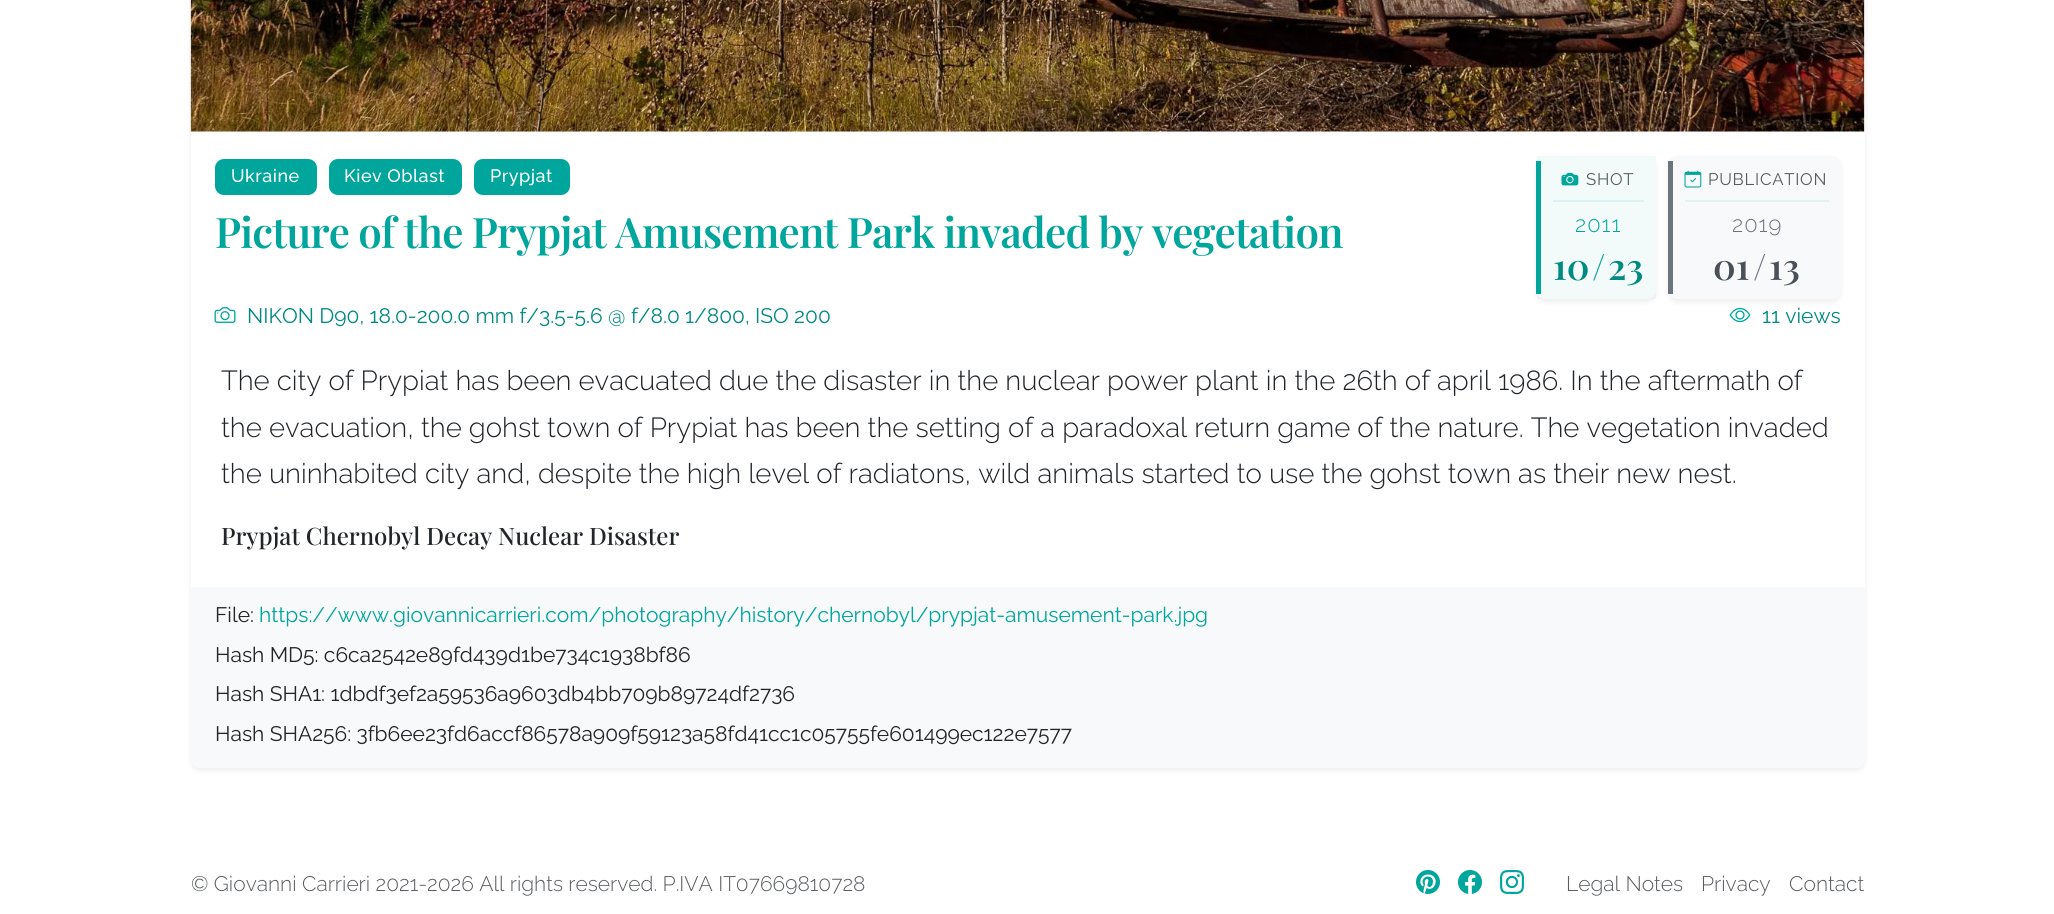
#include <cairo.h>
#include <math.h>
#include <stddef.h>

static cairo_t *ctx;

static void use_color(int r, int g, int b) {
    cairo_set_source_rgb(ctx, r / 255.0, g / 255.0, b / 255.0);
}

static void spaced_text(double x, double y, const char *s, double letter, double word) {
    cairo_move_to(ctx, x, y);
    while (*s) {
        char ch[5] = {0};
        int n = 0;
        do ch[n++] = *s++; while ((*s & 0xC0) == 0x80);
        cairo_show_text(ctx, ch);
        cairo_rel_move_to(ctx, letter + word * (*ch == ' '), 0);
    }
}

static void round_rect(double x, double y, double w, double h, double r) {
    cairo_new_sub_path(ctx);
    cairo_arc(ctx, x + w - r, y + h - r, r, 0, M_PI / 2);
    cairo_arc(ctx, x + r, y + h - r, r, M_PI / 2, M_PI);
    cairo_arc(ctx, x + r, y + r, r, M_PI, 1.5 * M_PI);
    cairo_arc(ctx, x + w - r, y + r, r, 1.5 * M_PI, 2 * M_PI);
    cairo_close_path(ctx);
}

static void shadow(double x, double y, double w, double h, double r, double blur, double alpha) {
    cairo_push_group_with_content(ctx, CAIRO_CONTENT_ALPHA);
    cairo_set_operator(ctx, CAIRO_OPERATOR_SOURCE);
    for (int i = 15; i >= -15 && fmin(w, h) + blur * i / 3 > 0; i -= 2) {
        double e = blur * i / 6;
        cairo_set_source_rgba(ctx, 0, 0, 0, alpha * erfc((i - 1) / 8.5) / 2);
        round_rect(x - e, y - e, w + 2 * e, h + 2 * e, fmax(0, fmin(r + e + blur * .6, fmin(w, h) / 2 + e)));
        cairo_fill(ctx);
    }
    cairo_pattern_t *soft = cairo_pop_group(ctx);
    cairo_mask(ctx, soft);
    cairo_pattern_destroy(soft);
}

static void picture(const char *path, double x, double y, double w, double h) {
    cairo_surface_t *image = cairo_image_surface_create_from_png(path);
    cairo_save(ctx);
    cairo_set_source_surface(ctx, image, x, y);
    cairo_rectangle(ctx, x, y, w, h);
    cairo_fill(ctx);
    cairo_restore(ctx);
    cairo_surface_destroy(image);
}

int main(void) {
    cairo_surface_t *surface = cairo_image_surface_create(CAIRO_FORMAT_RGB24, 2054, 914);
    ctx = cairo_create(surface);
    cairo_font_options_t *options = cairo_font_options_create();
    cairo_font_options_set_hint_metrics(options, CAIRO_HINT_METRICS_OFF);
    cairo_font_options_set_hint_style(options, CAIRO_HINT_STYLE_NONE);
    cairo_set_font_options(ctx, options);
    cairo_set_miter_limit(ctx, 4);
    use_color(255, 255, 255);
    cairo_paint(ctx);
    use_color(0, 0, 0);
    shadow(191, -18, 1674, 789, 9, 3, 0.07);
    use_color(255, 255, 255);
    round_rect(191, -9, 1674, 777, 9);
    cairo_fill(ctx);
    use_color(248, 249, 250);
    cairo_rectangle(ctx, 191, 0, 1674, 132);
    cairo_fill(ctx);
    picture("img1.png", 190, 0, 1675, 132);
    use_color(0, 166, 156);
    round_rect(215, 159, 102, 36, 9);
    cairo_fill(ctx);
    cairo_select_font_face(ctx, "Raleway Medium", CAIRO_FONT_SLANT_NORMAL, CAIRO_FONT_WEIGHT_NORMAL);
    cairo_set_font_size(ctx, 18);
    use_color(255, 255, 255);
    spaced_text(231, 182, "Ukraine", 0.5, 0);
    use_color(0, 166, 156);
    round_rect(329, 159, 133, 36, 9);
    cairo_fill(ctx);
    use_color(255, 255, 255);
    spaced_text(344, 182, "Kiev Oblast", 0.5, 0);
    use_color(0, 166, 156);
    round_rect(474, 159, 96, 36, 9);
    cairo_fill(ctx);
    use_color(255, 255, 255);
    spaced_text(490, 182, "Prypjat", 0.5, 0);
    cairo_select_font_face(ctx, "Playfair Display SemiBold", CAIRO_FONT_SLANT_NORMAL, CAIRO_FONT_WEIGHT_NORMAL);
    cairo_set_font_size(ctx, 42);
    use_color(0, 166, 156);
    spaced_text(215, 248, "Picture of the Prypjat Amusement Park invaded by vegetation", -0.85, 0);
    cairo_save(ctx);
    cairo_set_fill_rule(ctx, CAIRO_FILL_RULE_EVEN_ODD);
    cairo_new_path(ctx);
    cairo_move_to(ctx, 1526, 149);
    cairo_line_to(ctx, 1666, 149);
    cairo_line_to(ctx, 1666, 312);
    cairo_line_to(ctx, 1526, 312);
    cairo_close_path(ctx);
    cairo_move_to(ctx, 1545, 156);
    cairo_line_to(ctx, 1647, 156);
    cairo_curve_to(ctx, 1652, 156, 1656, 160, 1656, 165);
    cairo_line_to(ctx, 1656, 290);
    cairo_curve_to(ctx, 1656, 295, 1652, 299, 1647, 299);
    cairo_line_to(ctx, 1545, 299);
    cairo_curve_to(ctx, 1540, 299, 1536, 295, 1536, 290);
    cairo_line_to(ctx, 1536, 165);
    cairo_curve_to(ctx, 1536, 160, 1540, 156, 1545, 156);
    cairo_close_path(ctx);
    cairo_clip(ctx);
    use_color(0, 0, 0);
    shadow(1536, 159, 120, 143, 9, 3, 0.07);
    cairo_restore(ctx);
    cairo_set_source_rgba(ctx, 0, 0.651, 0.612, 0.05);
    cairo_rectangle(ctx, 1537, 156, 119, 143);
    cairo_fill(ctx);
    use_color(0, 166, 156);
    cairo_rectangle(ctx, 1536, 161, 5, 133);
    cairo_fill(ctx);
    use_color(218, 242, 241);
    cairo_rectangle(ctx, 1553, 200, 91, 2);
    cairo_fill(ctx);
    picture("img2.png", 1561, 172, 18, 14);
    cairo_select_font_face(ctx, "Raleway", CAIRO_FONT_SLANT_NORMAL, CAIRO_FONT_WEIGHT_NORMAL);
    cairo_set_font_size(ctx, 16.75);
    use_color(89, 92, 95);
    spaced_text(1586, 185, "SHOT", 0.75, 0);
    cairo_select_font_face(ctx, "Raleway Light", CAIRO_FONT_SLANT_NORMAL, CAIRO_FONT_WEIGHT_NORMAL);
    cairo_set_font_size(ctx, 22);
    use_color(0, 166, 156);
    spaced_text(1575, 232, "2011", 1, 0);
    cairo_select_font_face(ctx, "Playfair Display SemiBold", CAIRO_FONT_SLANT_NORMAL, CAIRO_FONT_WEIGHT_NORMAL);
    cairo_set_font_size(ctx, 36);
    use_color(0, 138, 130);
    cairo_move_to(ctx, 1553, 280);
    cairo_show_text(ctx, "10");
    cairo_select_font_face(ctx, "Playfair Display", CAIRO_FONT_SLANT_NORMAL, CAIRO_FONT_WEIGHT_NORMAL);
    use_color(0, 166, 156);
    cairo_move_to(ctx, 1592, 280);
    cairo_show_text(ctx, "/");
    cairo_select_font_face(ctx, "Playfair Display SemiBold", CAIRO_FONT_SLANT_NORMAL, CAIRO_FONT_WEIGHT_NORMAL);
    use_color(0, 138, 130);
    cairo_move_to(ctx, 1608, 280);
    cairo_show_text(ctx, "23");
    use_color(0, 0, 0);
    shadow(1668, 159, 173, 143, 9, 3, 0.07);
    use_color(248, 249, 250);
    round_rect(1668, 156, 173, 143, 9);
    cairo_fill(ctx);
    use_color(108, 117, 125);
    cairo_rectangle(ctx, 1668, 161, 5, 133);
    cairo_fill(ctx);
    use_color(223, 241, 241);
    cairo_rectangle(ctx, 1685, 200, 144, 2);
    cairo_fill(ctx);
    picture("img3.png", 1684, 170, 18, 18);
    cairo_select_font_face(ctx, "Raleway", CAIRO_FONT_SLANT_NORMAL, CAIRO_FONT_WEIGHT_NORMAL);
    cairo_set_font_size(ctx, 16.75);
    use_color(89, 92, 95);
    spaced_text(1708, 185, "PUBLICATION", 0.75, 0);
    cairo_select_font_face(ctx, "Raleway Light", CAIRO_FONT_SLANT_NORMAL, CAIRO_FONT_WEIGHT_NORMAL);
    cairo_set_font_size(ctx, 22);
    use_color(108, 117, 125);
    spaced_text(1732, 232, "2019", 1, 0);
    cairo_select_font_face(ctx, "Playfair Display SemiBold", CAIRO_FONT_SLANT_NORMAL, CAIRO_FONT_WEIGHT_NORMAL);
    cairo_set_font_size(ctx, 36);
    use_color(73, 80, 87);
    cairo_move_to(ctx, 1713, 280);
    cairo_show_text(ctx, "01");
    cairo_select_font_face(ctx, "Playfair Display", CAIRO_FONT_SLANT_NORMAL, CAIRO_FONT_WEIGHT_NORMAL);
    use_color(108, 117, 125);
    cairo_move_to(ctx, 1753, 280);
    cairo_show_text(ctx, "/");
    cairo_select_font_face(ctx, "Playfair Display SemiBold", CAIRO_FONT_SLANT_NORMAL, CAIRO_FONT_WEIGHT_NORMAL);
    use_color(73, 80, 87);
    cairo_move_to(ctx, 1769, 280);
    cairo_show_text(ctx, "13");
    picture("img4.png", 214, 307, 22, 16);
    cairo_select_font_face(ctx, "Raleway", CAIRO_FONT_SLANT_NORMAL, CAIRO_FONT_WEIGHT_NORMAL);
    cairo_set_font_size(ctx, 21);
    use_color(0, 138, 130);
    cairo_move_to(ctx, 247, 323);
    cairo_show_text(ctx, "NIKON D90, 18.0-200.0 mm f/3.5-5.6 @ f/8.0 1/800, ISO 200");
    picture("img5.png", 1729, 307, 22, 16);
    cairo_move_to(ctx, 1762, 323);
    cairo_show_text(ctx, "11 views");
    cairo_select_font_face(ctx, "Raleway Light", CAIRO_FONT_SLANT_NORMAL, CAIRO_FONT_WEIGHT_NORMAL);
    cairo_set_font_size(ctx, 27.6);
    use_color(33, 37, 41);
    cairo_move_to(ctx, 221, 390);
    cairo_show_text(ctx, "The city of Prypiat has been evacuated due the disaster in the nuclear power plant in the 26th of april 1986. In the aftermath of");
    cairo_move_to(ctx, 221, 437);
    cairo_show_text(ctx, "the evacuation, the gohst town of Prypiat has been the setting of a paradoxal return game of the nature. The vegetation invaded");
    cairo_move_to(ctx, 221, 483);
    cairo_show_text(ctx, "the uninhabited city and, despite the high level of radiatons, wild animals started to use the gohst town as their new nest.");
    cairo_select_font_face(ctx, "Playfair Display Medium", CAIRO_FONT_SLANT_NORMAL, CAIRO_FONT_WEIGHT_NORMAL);
    cairo_set_font_size(ctx, 24);
    cairo_move_to(ctx, 221, 545);
    cairo_show_text(ctx, "Prypjat Chernobyl Decay Nuclear Disaster");
    use_color(248, 249, 250);
    cairo_new_path(ctx);
    cairo_move_to(ctx, 191, 587);
    cairo_line_to(ctx, 1865, 587);
    cairo_line_to(ctx, 1865, 759);
    cairo_curve_to(ctx, 1865, 764, 1861, 768, 1856, 768);
    cairo_line_to(ctx, 200, 768);
    cairo_curve_to(ctx, 195, 768, 191, 764, 191, 759);
    cairo_close_path(ctx);
    cairo_fill(ctx);
    cairo_select_font_face(ctx, "Raleway", CAIRO_FONT_SLANT_NORMAL, CAIRO_FONT_WEIGHT_NORMAL);
    cairo_set_font_size(ctx, 21);
    use_color(33, 37, 41);
    cairo_move_to(ctx, 215, 622);
    cairo_show_text(ctx, "File:");
    use_color(0, 166, 156);
    cairo_move_to(ctx, 259, 622);
    cairo_show_text(ctx, "https://www.giovannicarrieri.com/photography/history/chernobyl/prypjat-amusement-park.jpg");
    use_color(33, 37, 41);
    cairo_move_to(ctx, 215, 662);
    cairo_show_text(ctx, "Hash MD5: c6ca2542e89fd439d1be734c1938bf86");
    cairo_move_to(ctx, 215, 701);
    cairo_show_text(ctx, "Hash SHA1: 1dbdf3ef2a59536a9603db4bb709b89724df2736");
    cairo_move_to(ctx, 215, 741);
    cairo_show_text(ctx, "Hash SHA256: 3fb6ee23fd6accf86578a909f59123a58fd41cc1c05755fe601499ec122e7577");
    cairo_select_font_face(ctx, "Raleway Light", CAIRO_FONT_SLANT_NORMAL, CAIRO_FONT_WEIGHT_NORMAL);
    use_color(89, 92, 95);
    cairo_move_to(ctx, 191, 891);
    cairo_show_text(ctx, "© Giovanni Carrieri 2021-2026 All rights reserved. P.IVA IT07669810728");
    picture("img6.png", 1416, 870, 24, 24);
    picture("img7.png", 1458, 870, 24, 24);
    picture("img8.png", 1500, 870, 24, 24);
    cairo_move_to(ctx, 1566, 891);
    cairo_show_text(ctx, "Legal Notes");
    cairo_move_to(ctx, 1701, 891);
    cairo_show_text(ctx, "Privacy");
    cairo_move_to(ctx, 1789, 891);
    cairo_show_text(ctx, "Contact");
    cairo_surface_write_to_png(surface, "result.png");
    cairo_font_options_destroy(options);
    cairo_destroy(ctx);
    cairo_surface_destroy(surface);
    return 0;
}
